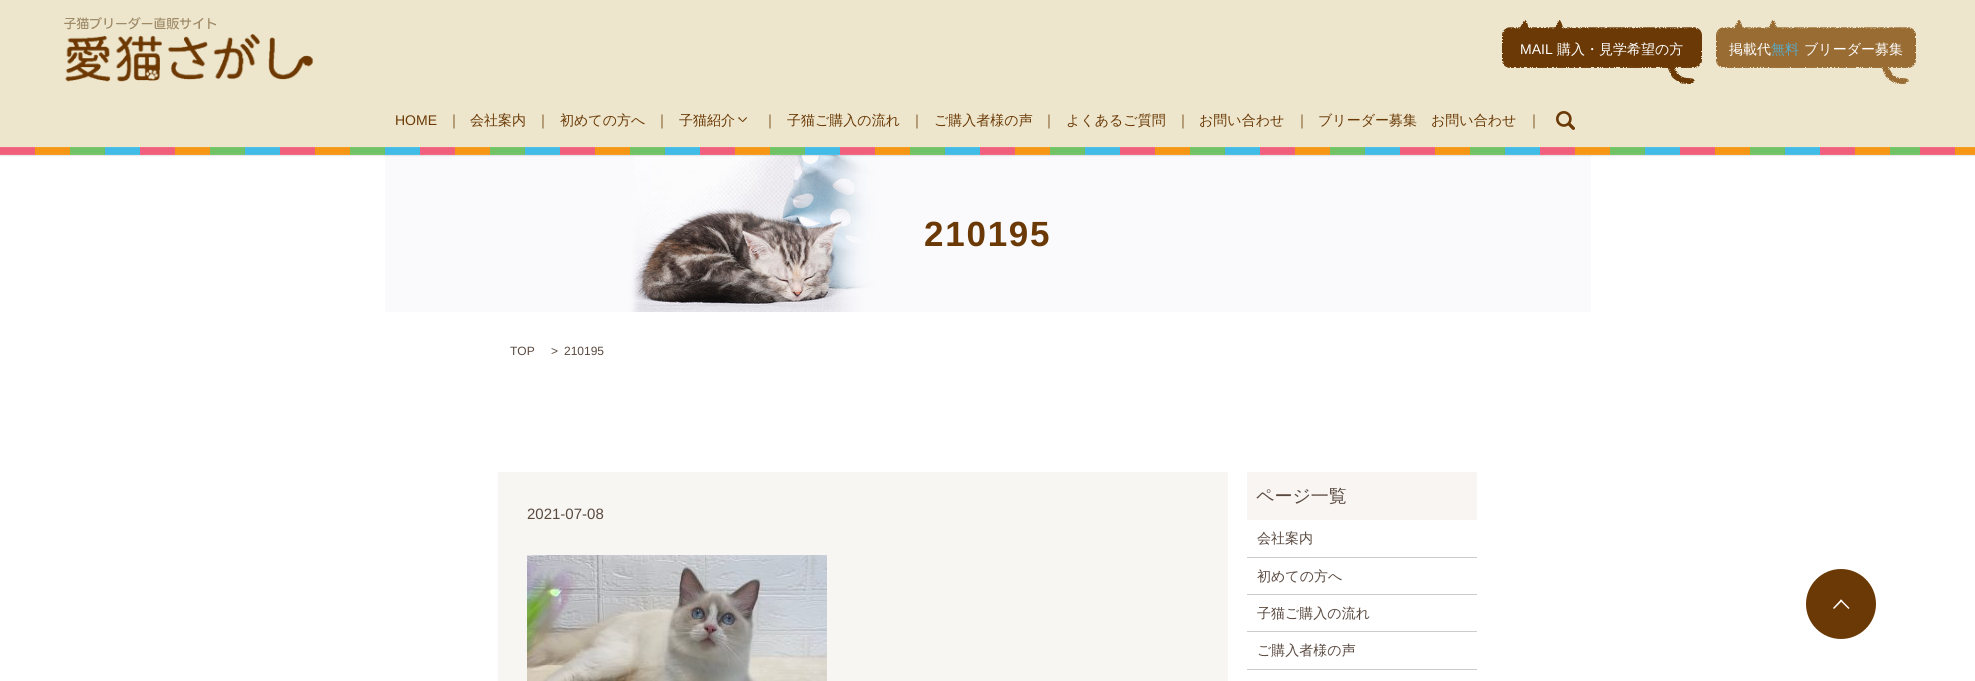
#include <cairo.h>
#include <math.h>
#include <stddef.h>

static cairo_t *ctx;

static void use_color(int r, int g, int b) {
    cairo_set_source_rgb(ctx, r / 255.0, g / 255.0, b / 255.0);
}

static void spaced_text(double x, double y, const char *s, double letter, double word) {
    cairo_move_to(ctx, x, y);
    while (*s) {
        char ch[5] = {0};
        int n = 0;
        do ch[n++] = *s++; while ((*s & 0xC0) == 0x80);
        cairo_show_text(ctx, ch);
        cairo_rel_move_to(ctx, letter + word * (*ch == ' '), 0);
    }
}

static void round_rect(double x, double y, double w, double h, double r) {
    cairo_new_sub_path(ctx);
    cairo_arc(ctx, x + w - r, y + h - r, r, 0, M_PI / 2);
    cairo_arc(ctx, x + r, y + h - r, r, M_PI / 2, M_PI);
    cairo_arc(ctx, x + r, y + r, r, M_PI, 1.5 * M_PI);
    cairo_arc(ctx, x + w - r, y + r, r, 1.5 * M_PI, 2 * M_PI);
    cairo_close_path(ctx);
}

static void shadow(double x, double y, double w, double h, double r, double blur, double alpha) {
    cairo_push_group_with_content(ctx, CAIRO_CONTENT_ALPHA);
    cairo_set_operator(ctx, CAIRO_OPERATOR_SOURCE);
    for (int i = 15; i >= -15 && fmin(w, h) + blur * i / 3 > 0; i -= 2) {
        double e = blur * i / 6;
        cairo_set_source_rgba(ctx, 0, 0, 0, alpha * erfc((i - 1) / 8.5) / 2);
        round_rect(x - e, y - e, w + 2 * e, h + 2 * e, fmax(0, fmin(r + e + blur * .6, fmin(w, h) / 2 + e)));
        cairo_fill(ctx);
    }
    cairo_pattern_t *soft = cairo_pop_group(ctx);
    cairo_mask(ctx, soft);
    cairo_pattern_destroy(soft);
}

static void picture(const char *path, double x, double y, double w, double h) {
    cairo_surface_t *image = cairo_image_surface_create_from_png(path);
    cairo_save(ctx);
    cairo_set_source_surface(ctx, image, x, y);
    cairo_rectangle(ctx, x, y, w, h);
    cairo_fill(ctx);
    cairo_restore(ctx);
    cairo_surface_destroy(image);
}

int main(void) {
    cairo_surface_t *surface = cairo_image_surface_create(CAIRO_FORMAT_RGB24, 1975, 681);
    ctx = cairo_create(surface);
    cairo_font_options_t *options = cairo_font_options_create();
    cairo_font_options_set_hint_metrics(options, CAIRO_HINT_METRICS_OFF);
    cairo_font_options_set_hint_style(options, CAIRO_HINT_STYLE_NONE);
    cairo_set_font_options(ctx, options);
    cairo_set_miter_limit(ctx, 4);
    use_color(255, 255, 255);
    cairo_paint(ctx);
    picture("img6.png", 385, 155, 1206, 157);
    use_color(0, 0, 0);
    shadow(0, 1, 1975, 155, 0, 0.5, 0.1);
    use_color(237, 230, 204);
    cairo_rectangle(ctx, 0, 0, 1975, 147);
    cairo_fill(ctx);
    picture("img1.png", 0, 147, 1975, 8);
    picture("img2.png", 64, 17, 249, 65);
    picture("img3.png", 1502, 20, 200, 64);
    cairo_select_font_face(ctx, "Liberation Sans", CAIRO_FONT_SLANT_NORMAL, CAIRO_FONT_WEIGHT_NORMAL);
    cairo_set_font_size(ctx, 14);
    use_color(255, 255, 255);
    cairo_move_to(ctx, 1520, 54);
    cairo_show_text(ctx, "MAIL");
    cairo_select_font_face(ctx, "WenQuanYi Zen Hei Medium", CAIRO_FONT_SLANT_NORMAL, CAIRO_FONT_WEIGHT_NORMAL);
    cairo_move_to(ctx, 1557, 54);
    cairo_show_text(ctx, "購入・見学希望の方");
    picture("img4.png", 1716, 20, 200, 64);
    cairo_move_to(ctx, 1729, 54);
    cairo_show_text(ctx, "掲載代");
    use_color(92, 168, 194);
    cairo_move_to(ctx, 1771, 54);
    cairo_show_text(ctx, "無料");
    use_color(255, 255, 255);
    cairo_move_to(ctx, 1804, 54);
    cairo_show_text(ctx, "ブリーダー募集");
    cairo_select_font_face(ctx, "Liberation Sans", CAIRO_FONT_SLANT_NORMAL, CAIRO_FONT_WEIGHT_NORMAL);
    use_color(106, 57, 6);
    cairo_move_to(ctx, 395, 125);
    cairo_show_text(ctx, "HOME");
    cairo_select_font_face(ctx, "WenQuanYi Zen Hei Medium", CAIRO_FONT_SLANT_NORMAL, CAIRO_FONT_WEIGHT_NORMAL);
    cairo_move_to(ctx, 447, 125);
    cairo_show_text(ctx, "｜");
    cairo_move_to(ctx, 470, 125);
    cairo_show_text(ctx, "会社案内");
    cairo_move_to(ctx, 536, 125);
    cairo_show_text(ctx, "｜");
    cairo_move_to(ctx, 560, 125);
    cairo_show_text(ctx, "初めての方へ");
    cairo_move_to(ctx, 655, 125);
    cairo_show_text(ctx, "｜");
    cairo_move_to(ctx, 679, 125);
    cairo_show_text(ctx, "子猫紹介");
    cairo_new_path(ctx);
    cairo_move_to(ctx, 742, 121.5);
    cairo_line_to(ctx, 746.5, 117);
    cairo_line_to(ctx, 747, 118);
    cairo_line_to(ctx, 743, 122);
    cairo_close_path(ctx);
    cairo_fill(ctx);
    cairo_new_path(ctx);
    cairo_move_to(ctx, 739, 117);
    cairo_line_to(ctx, 743, 121.5);
    cairo_line_to(ctx, 742.5, 122);
    cairo_line_to(ctx, 738, 118);
    cairo_close_path(ctx);
    cairo_fill(ctx);
    cairo_move_to(ctx, 763, 125);
    cairo_show_text(ctx, "｜");
    cairo_move_to(ctx, 787, 125);
    cairo_show_text(ctx, "子猫ご購入の流れ");
    cairo_move_to(ctx, 910, 125);
    cairo_show_text(ctx, "｜");
    cairo_move_to(ctx, 934, 125);
    cairo_show_text(ctx, "ご購入者様の声");
    cairo_move_to(ctx, 1042, 125);
    cairo_show_text(ctx, "｜");
    cairo_move_to(ctx, 1066, 125);
    cairo_show_text(ctx, "よくあるご質問");
    cairo_move_to(ctx, 1176, 125);
    cairo_show_text(ctx, "｜");
    cairo_move_to(ctx, 1199, 125);
    cairo_show_text(ctx, "お問い合わせ");
    cairo_move_to(ctx, 1295, 125);
    cairo_show_text(ctx, "｜");
    cairo_move_to(ctx, 1318, 125);
    cairo_show_text(ctx, "ブリーダー募集　お問い合わせ");
    cairo_move_to(ctx, 1527, 125);
    cairo_show_text(ctx, "｜");
    picture("img5.png", 1556, 111, 19, 19);
    cairo_select_font_face(ctx, "Liberation Sans", CAIRO_FONT_SLANT_NORMAL, CAIRO_FONT_WEIGHT_BOLD);
    cairo_set_font_size(ctx, 35);
    spaced_text(924, 246, "210195", 1.75, 0);
    cairo_select_font_face(ctx, "Liberation Sans", CAIRO_FONT_SLANT_NORMAL, CAIRO_FONT_WEIGHT_NORMAL);
    cairo_set_font_size(ctx, 12);
    use_color(89, 73, 63);
    cairo_move_to(ctx, 510, 355);
    cairo_show_text(ctx, "TOP");
    cairo_move_to(ctx, 551, 355);
    cairo_show_text(ctx, ">");
    cairo_move_to(ctx, 564, 355);
    cairo_show_text(ctx, "210195");
    use_color(248, 246, 243);
    cairo_rectangle(ctx, 498, 472, 730, 209);
    cairo_fill(ctx);
    cairo_set_font_size(ctx, 15);
    use_color(89, 73, 63);
    cairo_move_to(ctx, 527, 519);
    cairo_show_text(ctx, "2021-07-08");
    picture("img7.png", 527, 555, 300, 126);
    use_color(248, 245, 243);
    cairo_rectangle(ctx, 1247, 472, 230, 48);
    cairo_fill(ctx);
    cairo_select_font_face(ctx, "WenQuanYi Zen Hei Medium", CAIRO_FONT_SLANT_NORMAL, CAIRO_FONT_WEIGHT_NORMAL);
    cairo_set_font_size(ctx, 18);
    use_color(89, 73, 63);
    cairo_move_to(ctx, 1256, 502);
    cairo_show_text(ctx, "ページ一覧");
    use_color(204, 204, 204);
    cairo_rectangle(ctx, 1247, 557, 230, 1);
    cairo_fill(ctx);
    cairo_set_font_size(ctx, 14);
    use_color(89, 73, 63);
    cairo_move_to(ctx, 1257, 543);
    cairo_show_text(ctx, "会社案内");
    use_color(204, 204, 204);
    cairo_rectangle(ctx, 1247, 594, 230, 1);
    cairo_fill(ctx);
    use_color(89, 73, 63);
    cairo_move_to(ctx, 1257, 581);
    cairo_show_text(ctx, "初めての方へ");
    use_color(204, 204, 204);
    cairo_rectangle(ctx, 1247, 631, 230, 1);
    cairo_fill(ctx);
    use_color(89, 73, 63);
    cairo_move_to(ctx, 1257, 618);
    cairo_show_text(ctx, "子猫ご購入の流れ");
    use_color(204, 204, 204);
    cairo_rectangle(ctx, 1247, 669, 230, 1);
    cairo_fill(ctx);
    use_color(89, 73, 63);
    cairo_move_to(ctx, 1257, 655);
    cairo_show_text(ctx, "ご購入者様の声");
    use_color(106, 57, 6);
    cairo_new_path(ctx);
    cairo_arc(ctx, 1841, 604, 35, 0, 2 * M_PI);
    cairo_fill(ctx);
    use_color(255, 255, 255);
    cairo_new_path(ctx);
    cairo_move_to(ctx, 1841, 599.5);
    cairo_line_to(ctx, 1849.5, 608);
    cairo_line_to(ctx, 1848.5, 609);
    cairo_line_to(ctx, 1840, 600.5);
    cairo_close_path(ctx);
    cairo_fill(ctx);
    cairo_new_path(ctx);
    cairo_move_to(ctx, 1841, 599.5);
    cairo_line_to(ctx, 1842.5, 600.5);
    cairo_line_to(ctx, 1834, 609);
    cairo_line_to(ctx, 1833, 608);
    cairo_close_path(ctx);
    cairo_fill(ctx);
    cairo_surface_write_to_png(surface, "result.png");
    cairo_font_options_destroy(options);
    cairo_destroy(ctx);
    cairo_surface_destroy(surface);
    return 0;
}
